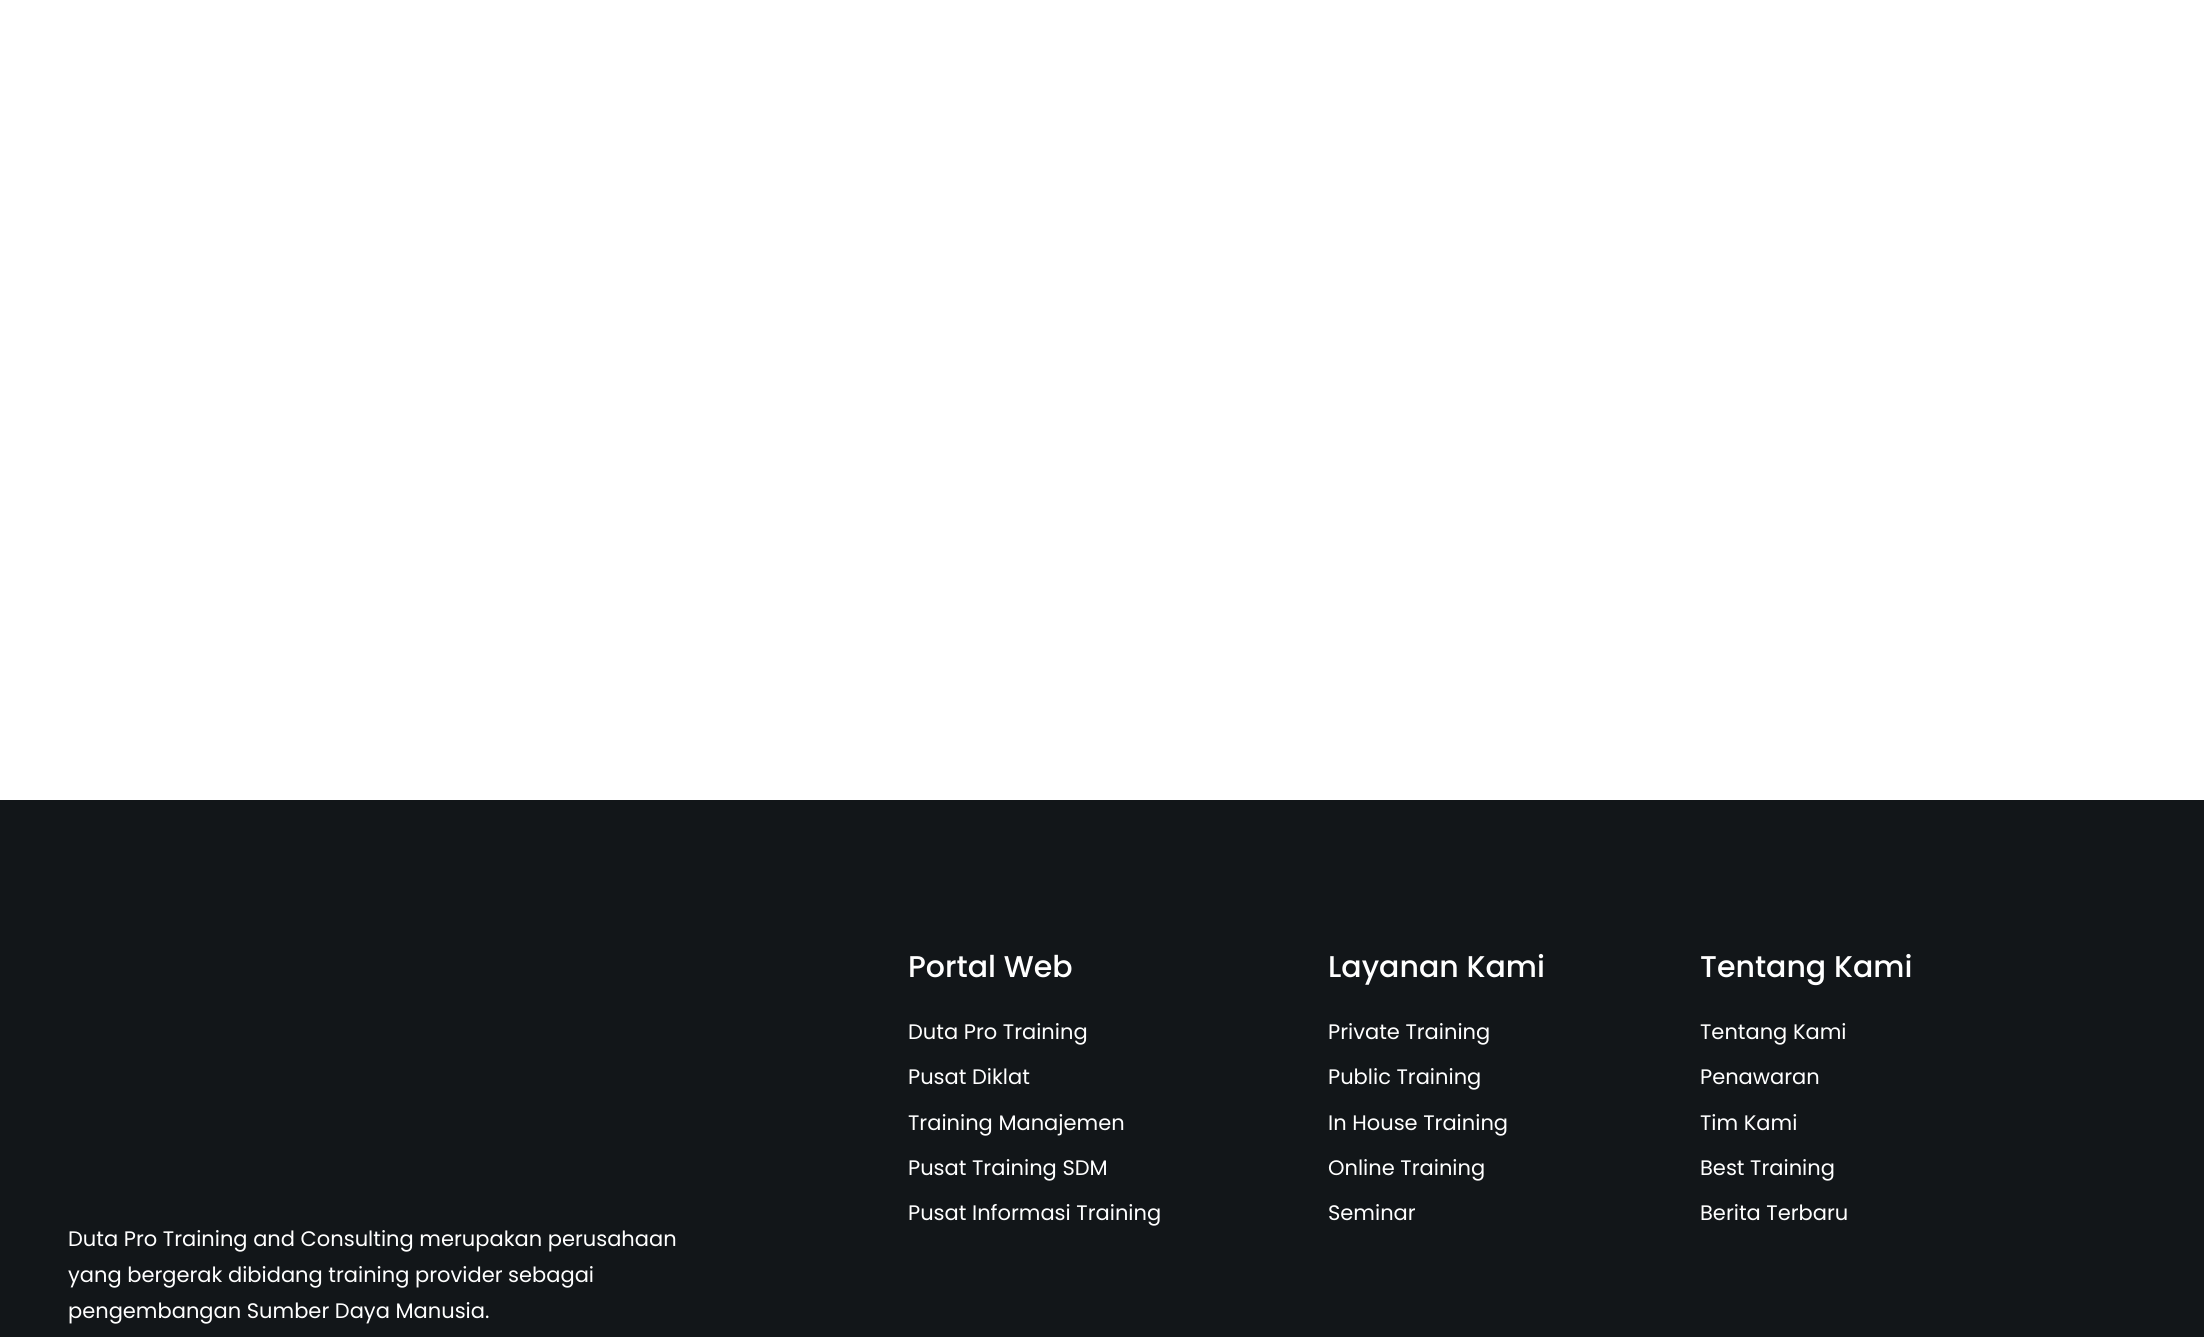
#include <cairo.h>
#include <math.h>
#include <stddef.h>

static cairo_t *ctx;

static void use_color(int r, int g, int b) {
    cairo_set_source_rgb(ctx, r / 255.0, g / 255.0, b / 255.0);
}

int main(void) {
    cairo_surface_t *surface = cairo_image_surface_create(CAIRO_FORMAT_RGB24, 2204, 1337);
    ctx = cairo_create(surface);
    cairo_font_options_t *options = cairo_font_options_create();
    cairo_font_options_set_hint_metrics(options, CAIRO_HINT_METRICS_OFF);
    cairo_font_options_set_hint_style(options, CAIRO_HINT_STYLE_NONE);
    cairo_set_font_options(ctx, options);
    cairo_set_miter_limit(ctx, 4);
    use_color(255, 255, 255);
    cairo_paint(ctx);
    use_color(18, 22, 25);
    cairo_rectangle(ctx, 0, 800, 2204, 537);
    cairo_fill(ctx);
    cairo_select_font_face(ctx, "Poppins Medium", CAIRO_FONT_SLANT_NORMAL, CAIRO_FONT_WEIGHT_NORMAL);
    cairo_set_font_size(ctx, 30);
    use_color(255, 255, 255);
    cairo_move_to(ctx, 908, 977);
    cairo_show_text(ctx, "Portal Web");
    cairo_select_font_face(ctx, "Poppins", CAIRO_FONT_SLANT_NORMAL, CAIRO_FONT_WEIGHT_NORMAL);
    cairo_set_font_size(ctx, 21);
    cairo_move_to(ctx, 908, 1039);
    cairo_show_text(ctx, "Duta Pro Training");
    cairo_move_to(ctx, 908, 1084);
    cairo_show_text(ctx, "Pusat Diklat");
    cairo_move_to(ctx, 908, 1130);
    cairo_show_text(ctx, "Training Manajemen");
    cairo_move_to(ctx, 908, 1175);
    cairo_show_text(ctx, "Pusat Training SDM");
    cairo_move_to(ctx, 908, 1220);
    cairo_show_text(ctx, "Pusat Informasi Training");
    cairo_select_font_face(ctx, "Poppins Medium", CAIRO_FONT_SLANT_NORMAL, CAIRO_FONT_WEIGHT_NORMAL);
    cairo_set_font_size(ctx, 30);
    cairo_move_to(ctx, 1328, 977);
    cairo_show_text(ctx, "Layanan Kami");
    cairo_select_font_face(ctx, "Poppins", CAIRO_FONT_SLANT_NORMAL, CAIRO_FONT_WEIGHT_NORMAL);
    cairo_set_font_size(ctx, 21);
    cairo_move_to(ctx, 1328, 1039);
    cairo_show_text(ctx, "Private Training");
    cairo_move_to(ctx, 1328, 1084);
    cairo_show_text(ctx, "Public Training");
    cairo_move_to(ctx, 1328, 1130);
    cairo_show_text(ctx, "In House Training");
    cairo_move_to(ctx, 1328, 1175);
    cairo_show_text(ctx, "Online Training");
    cairo_move_to(ctx, 1328, 1220);
    cairo_show_text(ctx, "Seminar");
    cairo_select_font_face(ctx, "Poppins Medium", CAIRO_FONT_SLANT_NORMAL, CAIRO_FONT_WEIGHT_NORMAL);
    cairo_set_font_size(ctx, 30);
    cairo_move_to(ctx, 1700, 977);
    cairo_show_text(ctx, "Tentang Kami");
    cairo_select_font_face(ctx, "Poppins", CAIRO_FONT_SLANT_NORMAL, CAIRO_FONT_WEIGHT_NORMAL);
    cairo_set_font_size(ctx, 21);
    cairo_move_to(ctx, 1700, 1039);
    cairo_show_text(ctx, "Tentang Kami");
    cairo_move_to(ctx, 1700, 1084);
    cairo_show_text(ctx, "Penawaran");
    cairo_move_to(ctx, 1700, 1130);
    cairo_show_text(ctx, "Tim Kami");
    cairo_move_to(ctx, 1700, 1175);
    cairo_show_text(ctx, "Best Training");
    cairo_move_to(ctx, 1700, 1220);
    cairo_show_text(ctx, "Berita Terbaru");
    cairo_move_to(ctx, 68, 1246);
    cairo_show_text(ctx, "Duta Pro Training and Consulting merupakan perusahaan");
    cairo_move_to(ctx, 68, 1282);
    cairo_show_text(ctx, "yang bergerak dibidang training provider sebagai");
    cairo_move_to(ctx, 68, 1318);
    cairo_show_text(ctx, "pengembangan Sumber Daya Manusia.");
    cairo_surface_write_to_png(surface, "result.png");
    cairo_font_options_destroy(options);
    cairo_destroy(ctx);
    cairo_surface_destroy(surface);
    return 0;
}
